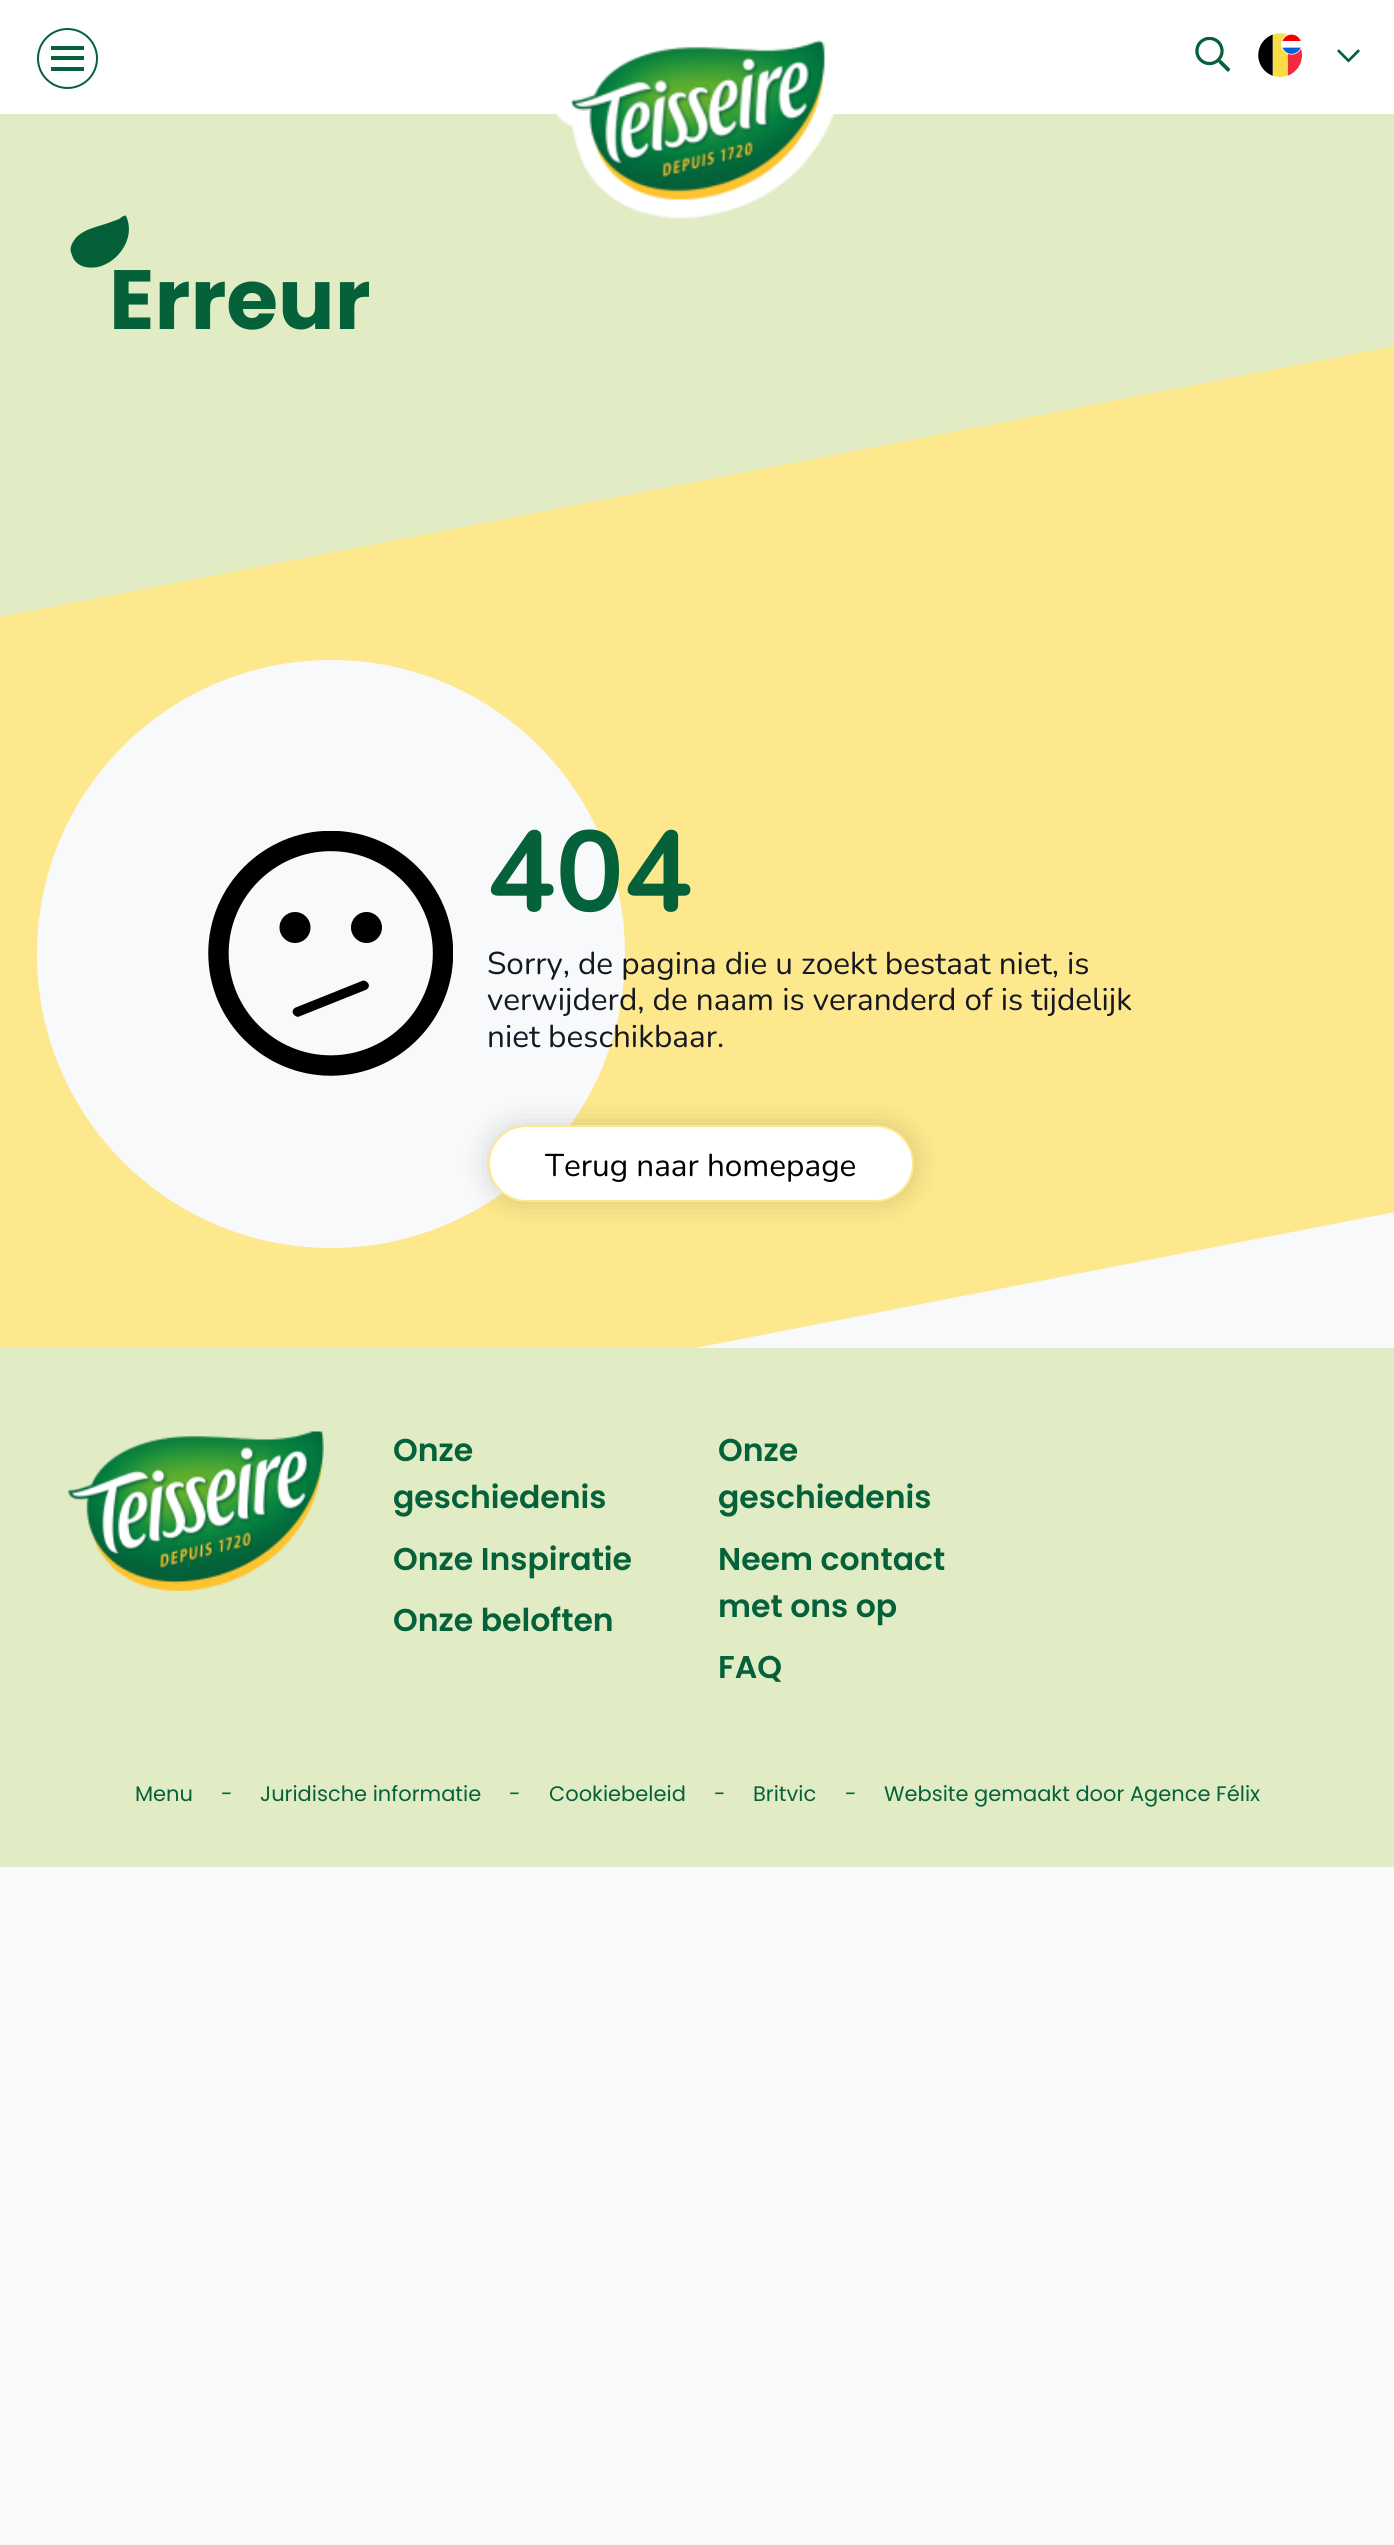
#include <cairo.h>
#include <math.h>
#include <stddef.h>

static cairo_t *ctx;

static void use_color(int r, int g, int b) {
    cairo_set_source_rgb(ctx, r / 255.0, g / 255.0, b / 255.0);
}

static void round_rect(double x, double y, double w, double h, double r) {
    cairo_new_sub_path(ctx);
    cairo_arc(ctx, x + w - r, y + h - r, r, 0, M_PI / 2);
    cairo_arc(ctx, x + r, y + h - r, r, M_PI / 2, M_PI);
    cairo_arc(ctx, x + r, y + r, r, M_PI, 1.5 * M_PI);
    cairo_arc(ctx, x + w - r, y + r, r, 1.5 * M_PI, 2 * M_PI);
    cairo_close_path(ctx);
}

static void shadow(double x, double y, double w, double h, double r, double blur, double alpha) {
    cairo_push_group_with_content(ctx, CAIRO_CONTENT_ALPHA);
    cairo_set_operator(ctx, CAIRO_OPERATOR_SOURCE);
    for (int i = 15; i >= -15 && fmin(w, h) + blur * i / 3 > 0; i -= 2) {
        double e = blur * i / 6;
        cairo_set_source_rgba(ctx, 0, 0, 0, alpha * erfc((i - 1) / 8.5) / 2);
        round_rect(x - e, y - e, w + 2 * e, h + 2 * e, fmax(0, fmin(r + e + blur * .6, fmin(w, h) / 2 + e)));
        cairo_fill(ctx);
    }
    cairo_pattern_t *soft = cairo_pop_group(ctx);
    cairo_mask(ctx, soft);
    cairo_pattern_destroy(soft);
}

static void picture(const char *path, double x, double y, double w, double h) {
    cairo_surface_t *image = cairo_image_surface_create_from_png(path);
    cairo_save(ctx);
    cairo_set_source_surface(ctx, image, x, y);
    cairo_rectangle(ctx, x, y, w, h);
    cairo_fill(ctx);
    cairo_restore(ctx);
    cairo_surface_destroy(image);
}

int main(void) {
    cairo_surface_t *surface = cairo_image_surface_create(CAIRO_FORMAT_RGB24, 1394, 2545);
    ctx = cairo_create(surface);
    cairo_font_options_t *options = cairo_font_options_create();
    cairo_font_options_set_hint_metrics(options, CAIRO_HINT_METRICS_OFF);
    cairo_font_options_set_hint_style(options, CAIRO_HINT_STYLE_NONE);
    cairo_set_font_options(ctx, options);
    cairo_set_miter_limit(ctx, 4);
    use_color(248, 249, 250);
    cairo_paint(ctx);
    use_color(225, 236, 197);
    cairo_new_path(ctx);
    cairo_move_to(ctx, 0, 246);
    cairo_line_to(ctx, 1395, -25);
    cairo_line_to(ctx, 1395, 347);
    cairo_line_to(ctx, 0, 618);
    cairo_close_path(ctx);
    cairo_fill(ctx);
    use_color(255, 255, 255);
    cairo_rectangle(ctx, 0, 0, 1394, 114);
    cairo_fill(ctx);
    cairo_arc(ctx, 67.5, 58.5, 29.5, 0, 2 * M_PI);
    use_color(4, 97, 57);
    cairo_stroke(ctx);
    cairo_rectangle(ctx, 51, 46, 33, 4);
    cairo_fill(ctx);
    cairo_rectangle(ctx, 51, 56, 33, 4);
    cairo_fill(ctx);
    cairo_rectangle(ctx, 51, 67, 33, 4);
    cairo_fill(ctx);
    use_color(225, 236, 197);
    cairo_rectangle(ctx, 0, 114, 1394, 369);
    cairo_fill(ctx);
    picture("img1.png", 556, 40, 279, 179);
    picture("img2.png", 1195, 37, 35, 35);
    picture("img3.png", 1258, 33, 44, 44);
    picture("img4.png", 1337, 49, 23, 14);
    use_color(4, 96, 57);
    cairo_set_fill_rule(ctx, CAIRO_FILL_RULE_EVEN_ODD);
    cairo_new_path(ctx);
    cairo_move_to(ctx, 126, 216);
    cairo_curve_to(ctx, 125, 214, 119, 219, 119, 219);
    cairo_line_to(ctx, 111, 222);
    cairo_curve_to(ctx, 98, 227, 80, 229, 73, 242);
    cairo_curve_to(ctx, 70, 247, 70, 251, 72, 255);
    cairo_curve_to(ctx, 73, 259, 76, 263, 80, 265);
    cairo_curve_to(ctx, 85, 268, 92, 268, 98, 267);
    cairo_curve_to(ctx, 119, 262, 136, 237, 126, 216);
    cairo_close_path(ctx);
    cairo_fill(ctx);
    cairo_select_font_face(ctx, "Poppins", CAIRO_FONT_SLANT_NORMAL, CAIRO_FONT_WEIGHT_BOLD);
    cairo_set_font_size(ctx, 84);
    use_color(4, 97, 57);
    cairo_move_to(ctx, 109, 329);
    cairo_show_text(ctx, "Erreur");
    use_color(254, 232, 141);
    cairo_set_fill_rule(ctx, CAIRO_FILL_RULE_WINDING);
    cairo_new_path(ctx);
    cairo_move_to(ctx, 0, 617);
    cairo_line_to(ctx, 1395, 346);
    cairo_line_to(ctx, 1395, 1212);
    cairo_line_to(ctx, 0, 1483);
    cairo_close_path(ctx);
    cairo_fill(ctx);
    use_color(248, 249, 250);
    cairo_arc(ctx, 331, 954, 294, 0, 2 * M_PI);
    cairo_fill(ctx);
    picture("img5.png", 208, 831, 245, 245);
    cairo_select_font_face(ctx, "Nunito", CAIRO_FONT_SLANT_NORMAL, CAIRO_FONT_WEIGHT_BOLD);
    cairo_set_font_size(ctx, 114);
    use_color(4, 97, 57);
    cairo_move_to(ctx, 487, 911);
    cairo_show_text(ctx, "404");
    cairo_select_font_face(ctx, "Nunito", CAIRO_FONT_SLANT_NORMAL, CAIRO_FONT_WEIGHT_NORMAL);
    cairo_set_font_size(ctx, 31.5);
    use_color(21, 23, 35);
    cairo_move_to(ctx, 487, 974);
    cairo_show_text(ctx, "Sorry, de pagina die u zoekt bestaat niet, is");
    cairo_move_to(ctx, 487, 1010);
    cairo_show_text(ctx, "verwijderd, de naam is veranderd of is tijdelijk");
    cairo_move_to(ctx, 487, 1047);
    cairo_show_text(ctx, "niet beschikbaar.");
    use_color(0, 0, 0);
    shadow(488, 1125, 426, 77, 38.5, 14, 0.15);
    use_color(255, 255, 255);
    round_rect(489, 1126, 424, 75, 37.5);
    cairo_fill_preserve(ctx);
    use_color(254, 232, 141);
    cairo_stroke(ctx);
    use_color(0, 0, 0);
    cairo_move_to(ctx, 545, 1176);
    cairo_show_text(ctx, "Terug naar homepage");
    use_color(225, 236, 197);
    cairo_rectangle(ctx, 0, 1348, 1394, 519);
    cairo_fill(ctx);
    picture("img6.png", 68, 1431, 256, 160);
    cairo_select_font_face(ctx, "Poppins SemiBold", CAIRO_FONT_SLANT_NORMAL, CAIRO_FONT_WEIGHT_NORMAL);
    use_color(4, 97, 57);
    cairo_move_to(ctx, 393, 1461);
    cairo_show_text(ctx, "Onze");
    cairo_move_to(ctx, 393, 1508);
    cairo_show_text(ctx, "geschiedenis");
    cairo_move_to(ctx, 393, 1570);
    cairo_show_text(ctx, "Onze Inspiratie");
    cairo_move_to(ctx, 393, 1631);
    cairo_show_text(ctx, "Onze beloften");
    cairo_move_to(ctx, 718, 1461);
    cairo_show_text(ctx, "Onze");
    cairo_move_to(ctx, 718, 1508);
    cairo_show_text(ctx, "geschiedenis");
    cairo_move_to(ctx, 718, 1570);
    cairo_show_text(ctx, "Neem contact");
    cairo_move_to(ctx, 718, 1617);
    cairo_show_text(ctx, "met ons op");
    cairo_move_to(ctx, 718, 1678);
    cairo_show_text(ctx, "FAQ");
    cairo_select_font_face(ctx, "Poppins", CAIRO_FONT_SLANT_NORMAL, CAIRO_FONT_WEIGHT_NORMAL);
    cairo_set_font_size(ctx, 21);
    cairo_move_to(ctx, 135, 1801);
    cairo_show_text(ctx, "Menu");
    cairo_move_to(ctx, 221, 1801);
    cairo_show_text(ctx, "-");
    cairo_move_to(ctx, 260, 1801);
    cairo_show_text(ctx, "Juridische informatie");
    cairo_move_to(ctx, 509, 1801);
    cairo_show_text(ctx, "-");
    cairo_move_to(ctx, 549, 1801);
    cairo_show_text(ctx, "Cookiebeleid");
    cairo_move_to(ctx, 714, 1801);
    cairo_show_text(ctx, "-");
    cairo_move_to(ctx, 753, 1801);
    cairo_show_text(ctx, "Britvic");
    cairo_move_to(ctx, 845, 1801);
    cairo_show_text(ctx, "-");
    cairo_move_to(ctx, 884, 1801);
    cairo_show_text(ctx, "Website gemaakt door Agence Félix");
    cairo_surface_write_to_png(surface, "result.png");
    cairo_font_options_destroy(options);
    cairo_destroy(ctx);
    cairo_surface_destroy(surface);
    return 0;
}
